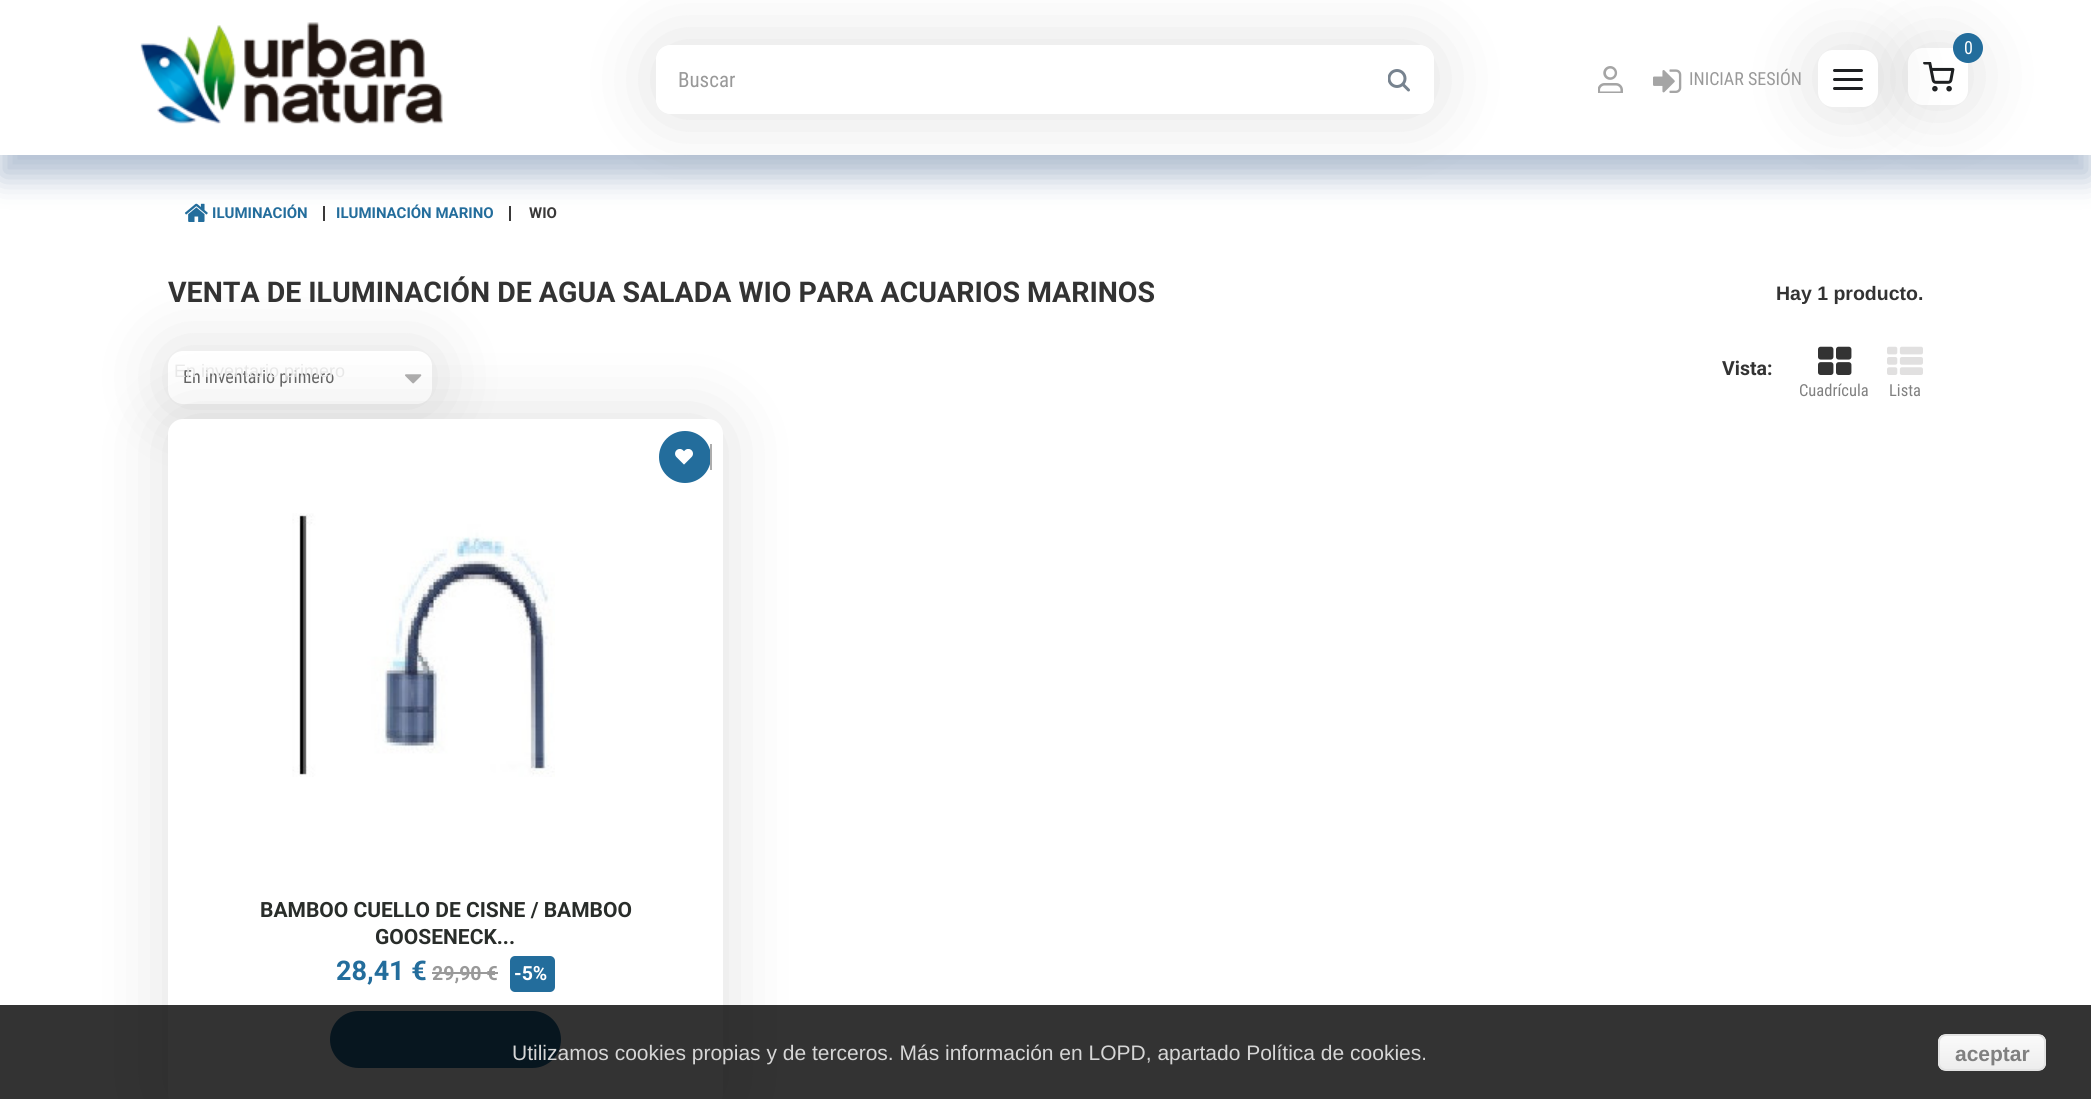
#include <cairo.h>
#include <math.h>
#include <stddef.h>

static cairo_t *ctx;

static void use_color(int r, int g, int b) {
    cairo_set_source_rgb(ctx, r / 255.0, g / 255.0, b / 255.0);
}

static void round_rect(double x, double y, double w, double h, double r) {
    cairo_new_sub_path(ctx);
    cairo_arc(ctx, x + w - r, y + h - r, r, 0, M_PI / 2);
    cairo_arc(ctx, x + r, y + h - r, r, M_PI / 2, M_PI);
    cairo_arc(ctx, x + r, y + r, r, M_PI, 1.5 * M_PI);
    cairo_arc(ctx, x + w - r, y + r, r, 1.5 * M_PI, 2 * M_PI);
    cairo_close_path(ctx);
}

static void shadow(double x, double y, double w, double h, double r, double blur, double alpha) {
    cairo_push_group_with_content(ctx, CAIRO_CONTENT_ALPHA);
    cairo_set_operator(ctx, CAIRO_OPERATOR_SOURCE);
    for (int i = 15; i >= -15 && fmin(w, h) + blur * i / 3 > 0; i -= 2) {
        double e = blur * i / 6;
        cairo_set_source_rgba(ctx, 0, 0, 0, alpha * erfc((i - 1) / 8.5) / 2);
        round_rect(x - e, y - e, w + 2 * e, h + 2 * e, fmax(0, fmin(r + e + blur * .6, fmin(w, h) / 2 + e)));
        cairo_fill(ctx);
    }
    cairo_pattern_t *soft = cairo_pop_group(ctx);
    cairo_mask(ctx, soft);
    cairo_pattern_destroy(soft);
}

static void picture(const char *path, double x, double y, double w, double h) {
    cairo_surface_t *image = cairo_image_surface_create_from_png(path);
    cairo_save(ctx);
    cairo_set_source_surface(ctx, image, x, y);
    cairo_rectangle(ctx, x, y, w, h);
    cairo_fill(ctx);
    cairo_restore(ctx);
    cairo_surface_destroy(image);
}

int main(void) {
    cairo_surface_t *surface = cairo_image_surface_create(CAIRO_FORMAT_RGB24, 2091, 1099);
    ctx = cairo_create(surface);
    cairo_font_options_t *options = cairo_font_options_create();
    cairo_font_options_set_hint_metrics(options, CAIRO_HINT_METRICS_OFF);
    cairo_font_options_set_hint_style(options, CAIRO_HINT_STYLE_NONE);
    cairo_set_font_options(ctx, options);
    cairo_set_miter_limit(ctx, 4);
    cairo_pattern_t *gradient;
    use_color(255, 255, 255);
    cairo_paint(ctx);
    picture("img5.png", 184, 203, 24, 19);
    use_color(58, 57, 57);
    cairo_rectangle(ctx, 323, 206, 2, 15);
    cairo_fill(ctx);
    cairo_rectangle(ctx, 509, 206, 2, 15);
    cairo_fill(ctx);
    use_color(0, 46, 106);
    shadow(0, 23, 2091, 154, 0, 15, 0.3);
    use_color(255, 255, 255);
    cairo_rectangle(ctx, 0, 0, 2091, 155);
    cairo_fill(ctx);
    use_color(0, 0, 0);
    shadow(1908, 48, 60, 57, 15, 36, 0.13);
    use_color(255, 255, 255);
    round_rect(1908, 48, 60, 57, 15);
    cairo_fill(ctx);
    picture("img2.png", 1923, 62, 32, 30);
    use_color(35, 109, 156);
    cairo_arc(ctx, 1968, 48, 15, 0, 2 * M_PI);
    cairo_fill(ctx);
    use_color(0, 0, 0);
    shadow(1818, 50, 60, 57, 15, 36, 0.13);
    use_color(255, 255, 255);
    round_rect(1818, 50, 60, 57, 15);
    cairo_fill(ctx);
    cairo_new_path(ctx);
    cairo_move_to(ctx, 1834.5, 79.5);
    cairo_line_to(ctx, 1861.5, 79.5);
    cairo_move_to(ctx, 1834.5, 70.5);
    cairo_line_to(ctx, 1861.5, 70.5);
    cairo_move_to(ctx, 1834.5, 88.5);
    cairo_line_to(ctx, 1861.5, 88.5);
    use_color(30, 32, 34);
    cairo_set_line_width(ctx, 3);
    cairo_set_line_cap(ctx, CAIRO_LINE_CAP_ROUND);
    cairo_set_line_join(ctx, CAIRO_LINE_JOIN_ROUND);
    cairo_stroke(ctx);
    picture("img1.png", 140, 22, 303, 102);
    cairo_select_font_face(ctx, "Roboto Condensed", CAIRO_FONT_SLANT_NORMAL, CAIRO_FONT_WEIGHT_NORMAL);
    cairo_set_font_size(ctx, 18);
    use_color(255, 255, 255);
    cairo_move_to(ctx, 1964, 54);
    cairo_show_text(ctx, "0");
    cairo_save(ctx);
    cairo_set_fill_rule(ctx, CAIRO_FILL_RULE_EVEN_ODD);
    cairo_new_path(ctx);
    cairo_move_to(ctx, 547, 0);
    cairo_line_to(ctx, 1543, 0);
    cairo_line_to(ctx, 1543, 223);
    cairo_line_to(ctx, 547, 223);
    cairo_close_path(ctx);
    cairo_move_to(ctx, 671, 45);
    cairo_line_to(ctx, 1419, 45);
    cairo_curve_to(ctx, 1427.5, 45, 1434, 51.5, 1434, 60);
    cairo_line_to(ctx, 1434, 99);
    cairo_curve_to(ctx, 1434, 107.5, 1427.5, 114, 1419, 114);
    cairo_line_to(ctx, 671, 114);
    cairo_curve_to(ctx, 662.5, 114, 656, 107.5, 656, 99);
    cairo_line_to(ctx, 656, 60);
    cairo_curve_to(ctx, 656, 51.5, 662.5, 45, 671, 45);
    cairo_close_path(ctx);
    cairo_clip(ctx);
    use_color(0, 0, 0);
    shadow(656, 45, 778, 69, 15, 36, 0.13);
    cairo_restore(ctx);
    cairo_set_font_size(ctx, 21);
    use_color(153, 153, 153);
    cairo_move_to(ctx, 678, 87);
    cairo_show_text(ctx, "Buscar");
    cairo_save(ctx);
    cairo_rectangle(ctx, 1388, 69, 22, 23);
    cairo_clip(ctx);
    cairo_arc(ctx, 1397, 78.5, 8, 0, 2 * M_PI);
    use_color(119, 131, 143);
    cairo_set_line_cap(ctx, CAIRO_LINE_CAP_BUTT);
    cairo_set_line_join(ctx, CAIRO_LINE_JOIN_MITER);
    cairo_stroke(ctx);
    cairo_restore(ctx);
    cairo_new_path(ctx);
    cairo_move_to(ctx, 1408.5, 90);
    cairo_line_to(ctx, 1403, 84.5);
    use_color(119, 131, 143);
    cairo_stroke(ctx);
    picture("img3.png", 1598, 66, 25, 27);
    picture("img4.png", 1653, 69, 29, 24);
    cairo_set_font_size(ctx, 18);
    use_color(153, 153, 153);
    cairo_move_to(ctx, 1689, 85);
    cairo_show_text(ctx, "INICIAR SESIÓN");
    cairo_select_font_face(ctx, "Roboto", CAIRO_FONT_SLANT_NORMAL, CAIRO_FONT_WEIGHT_BOLD);
    cairo_set_font_size(ctx, 15);
    use_color(35, 109, 156);
    cairo_move_to(ctx, 212, 218);
    cairo_show_text(ctx, "ILUMINACIÓN");
    cairo_move_to(ctx, 336, 218);
    cairo_show_text(ctx, "ILUMINACIÓN MARINO");
    use_color(58, 57, 57);
    cairo_move_to(ctx, 529, 218);
    cairo_show_text(ctx, "WIO");
    cairo_set_font_size(ctx, 28.5);
    use_color(51, 51, 51);
    cairo_move_to(ctx, 168, 302);
    cairo_show_text(ctx, "VENTA DE ILUMINACIÓN DE AGUA SALADA WIO PARA ACUARIOS MARINOS");
    cairo_select_font_face(ctx, "Liberation Sans", CAIRO_FONT_SLANT_NORMAL, CAIRO_FONT_WEIGHT_BOLD);
    cairo_set_font_size(ctx, 19.5);
    cairo_move_to(ctx, 1776, 300);
    cairo_show_text(ctx, "Hay 1 producto.");
    use_color(0, 0, 0);
    shadow(168, 351, 264, 53, 15, 36, 0.13);
    use_color(255, 255, 255);
    round_rect(168, 351, 264, 53, 15);
    cairo_fill(ctx);
    cairo_select_font_face(ctx, "Roboto Condensed", CAIRO_FONT_SLANT_NORMAL, CAIRO_FONT_WEIGHT_NORMAL);
    cairo_set_font_size(ctx, 18);
    use_color(102, 102, 102);
    cairo_move_to(ctx, 183, 383);
    cairo_show_text(ctx, "En inventario primero");
    cairo_select_font_face(ctx, "Liberation Sans", CAIRO_FONT_SLANT_NORMAL, CAIRO_FONT_WEIGHT_NORMAL);
    use_color(235, 235, 235);
    cairo_move_to(ctx, 174, 377);
    cairo_show_text(ctx, "En inventario primero");
    picture("img6.png", 405, 374, 17, 10);
    cairo_select_font_face(ctx, "Roboto", CAIRO_FONT_SLANT_NORMAL, CAIRO_FONT_WEIGHT_BOLD);
    cairo_set_font_size(ctx, 19.5);
    use_color(51, 51, 51);
    cairo_move_to(ctx, 1722, 375);
    cairo_show_text(ctx, "Vista:");
    picture("img7.png", 1818, 346, 34, 29);
    cairo_select_font_face(ctx, "Roboto Condensed", CAIRO_FONT_SLANT_NORMAL, CAIRO_FONT_WEIGHT_NORMAL);
    cairo_set_font_size(ctx, 16.5);
    use_color(128, 128, 128);
    cairo_move_to(ctx, 1799, 396);
    cairo_show_text(ctx, "Cuadrícula");
    picture("img8.png", 1887, 346, 36, 29);
    cairo_move_to(ctx, 1889, 396);
    cairo_show_text(ctx, "Lista");
    use_color(0, 0, 0);
    shadow(168, 419, 555, 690, 15, 36, 0.13);
    use_color(255, 255, 255);
    round_rect(168, 419, 555, 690, 15);
    cairo_fill(ctx);
    use_color(35, 109, 156);
    cairo_arc(ctx, 685, 457, 26, 0, 2 * M_PI);
    cairo_fill(ctx);
    picture("img9.png", 675, 449, 18, 16);
    use_color(173, 173, 173);
    cairo_rectangle(ctx, 710, 444, 2, 26);
    cairo_fill(ctx);
    picture("img10.png", 292, 513, 263, 264);
    cairo_select_font_face(ctx, "Roboto", CAIRO_FONT_SLANT_NORMAL, CAIRO_FONT_WEIGHT_BOLD);
    cairo_set_font_size(ctx, 21);
    use_color(41, 45, 42);
    cairo_move_to(ctx, 260, 917);
    cairo_show_text(ctx, "BAMBOO CUELLO DE CISNE / BAMBOO");
    cairo_move_to(ctx, 375, 944);
    cairo_show_text(ctx, "GOOSENECK...");
    cairo_set_font_size(ctx, 27);
    use_color(35, 109, 156);
    cairo_move_to(ctx, 336, 980);
    cairo_show_text(ctx, "28,41 €");
    cairo_set_font_size(ctx, 19.5);
    use_color(153, 153, 153);
    cairo_move_to(ctx, 432, 980);
    cairo_show_text(ctx, "29,90 €");
    cairo_rectangle(ctx, 432, 972, 66, 2);
    cairo_fill(ctx);
    use_color(35, 109, 156);
    round_rect(510, 956, 45, 36, 5);
    cairo_fill(ctx);
    use_color(255, 255, 255);
    cairo_move_to(ctx, 514, 980);
    cairo_show_text(ctx, "-5%");
    use_color(35, 109, 156);
    round_rect(330, 1011, 231, 57, 28.5);
    cairo_fill(ctx);
    cairo_set_source_rgba(ctx, 0, 0, 0, 0.8);
    cairo_rectangle(ctx, 0, 1005, 2091, 94);
    cairo_fill(ctx);
    cairo_select_font_face(ctx, "Liberation Sans", CAIRO_FONT_SLANT_NORMAL, CAIRO_FONT_WEIGHT_NORMAL);
    cairo_set_font_size(ctx, 21);
    use_color(214, 214, 214);
    cairo_move_to(ctx, 512, 1060);
    cairo_show_text(ctx, "Utilizamos cookies propias y de terceros. Más información en LOPD, apartado Política de cookies.");
    cairo_save(ctx);
    round_rect(1938, 1034, 108, 37, 8);
    cairo_clip(ctx);
    gradient = cairo_pattern_create_linear(1940, 1035, 1940, 1070);
    cairo_pattern_add_color_stop_rgba(gradient, 0.05, 0.98, 0.98, 0.98, 1);
    cairo_pattern_add_color_stop_rgba(gradient, 1, 0.929, 0.929, 0.929, 1);
    cairo_set_source(ctx, gradient);
    cairo_pattern_destroy(gradient);
    cairo_rectangle(ctx, 1938, 1035, 108, 35);
    cairo_fill(ctx);
    cairo_restore(ctx);
    round_rect(1939, 1035, 106, 35, 7);
    use_color(227, 227, 227);
    cairo_set_line_width(ctx, 2);
    cairo_set_line_cap(ctx, CAIRO_LINE_CAP_BUTT);
    cairo_set_line_join(ctx, CAIRO_LINE_JOIN_MITER);
    cairo_stroke(ctx);
    cairo_select_font_face(ctx, "Liberation Sans", CAIRO_FONT_SLANT_NORMAL, CAIRO_FONT_WEIGHT_BOLD);
    use_color(128, 128, 128);
    cairo_move_to(ctx, 1955, 1061);
    cairo_show_text(ctx, "aceptar");
    cairo_surface_write_to_png(surface, "result.png");
    cairo_font_options_destroy(options);
    cairo_destroy(ctx);
    cairo_surface_destroy(surface);
    return 0;
}
